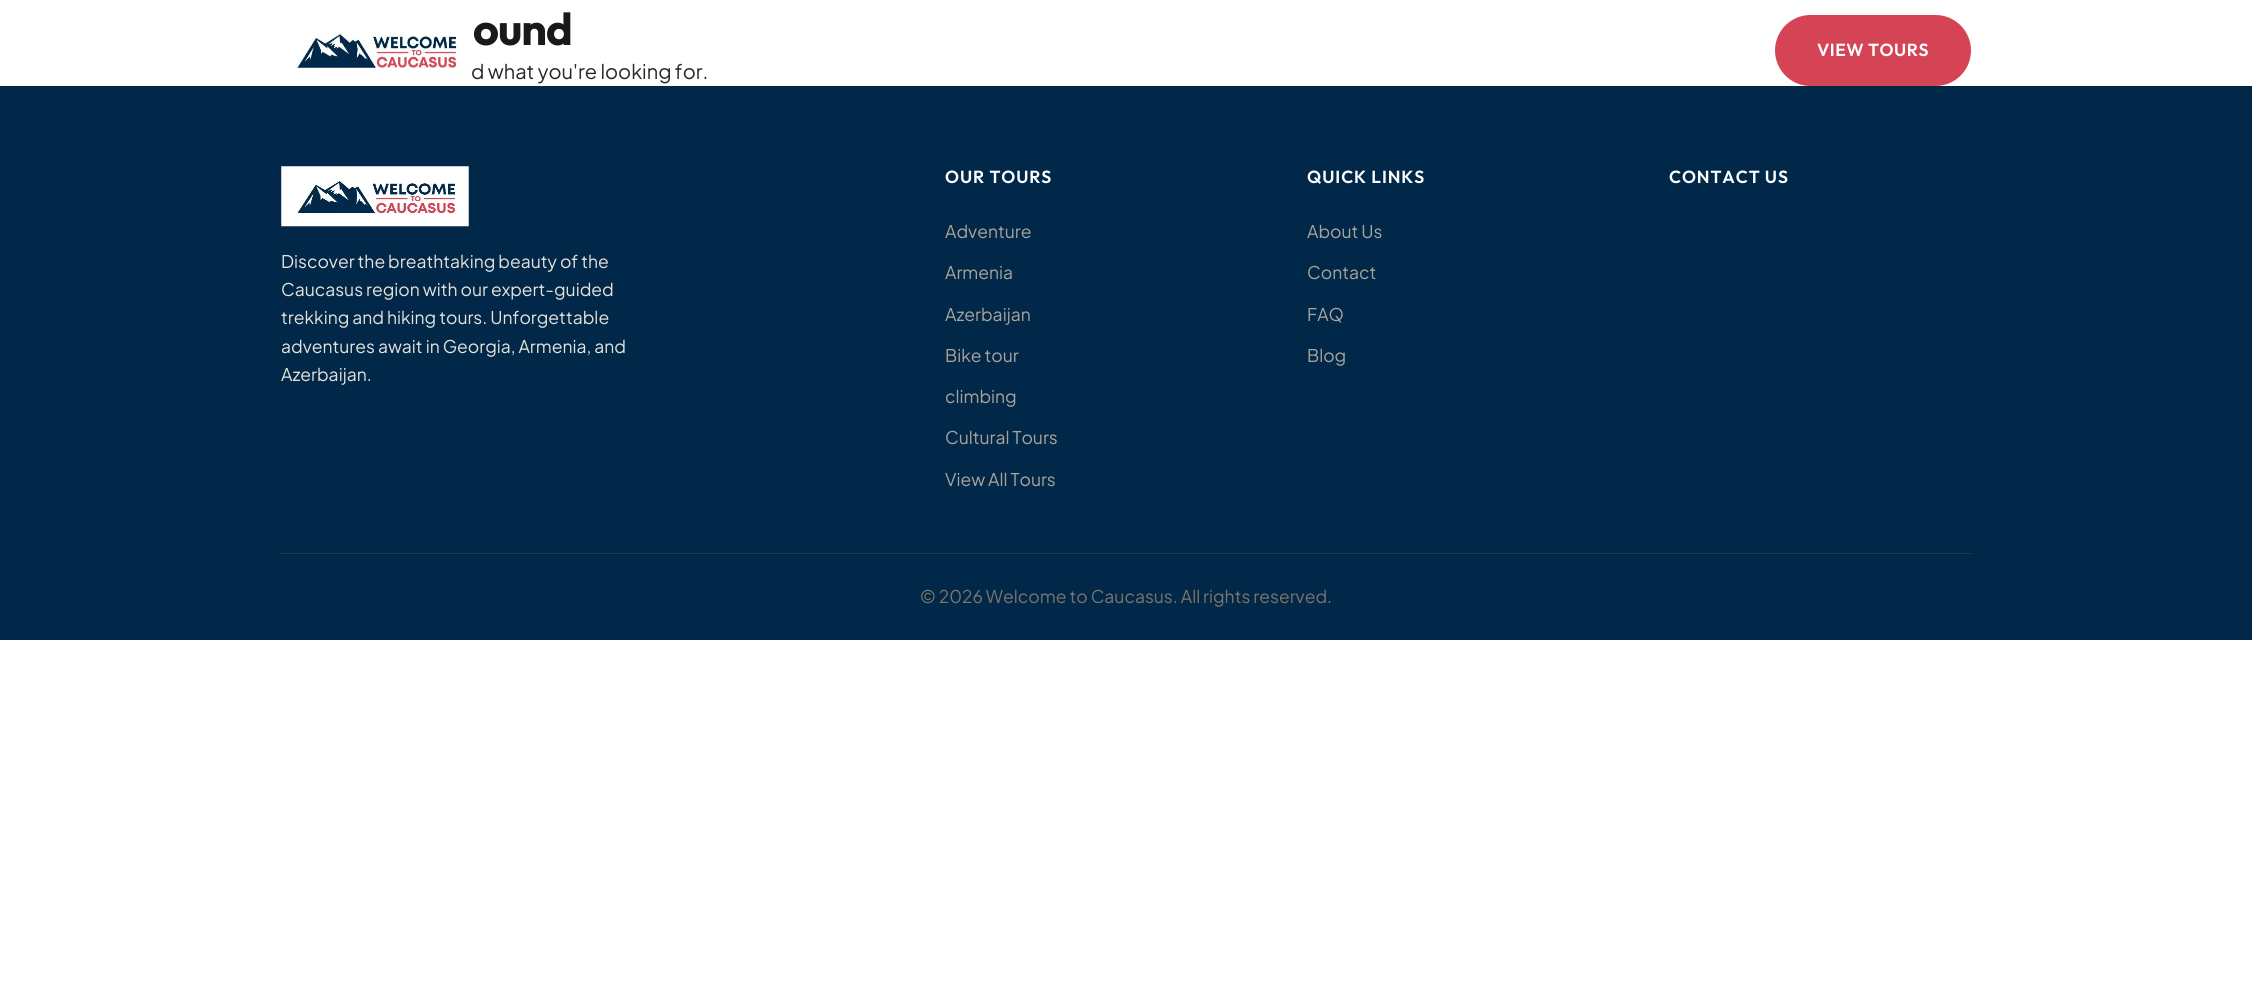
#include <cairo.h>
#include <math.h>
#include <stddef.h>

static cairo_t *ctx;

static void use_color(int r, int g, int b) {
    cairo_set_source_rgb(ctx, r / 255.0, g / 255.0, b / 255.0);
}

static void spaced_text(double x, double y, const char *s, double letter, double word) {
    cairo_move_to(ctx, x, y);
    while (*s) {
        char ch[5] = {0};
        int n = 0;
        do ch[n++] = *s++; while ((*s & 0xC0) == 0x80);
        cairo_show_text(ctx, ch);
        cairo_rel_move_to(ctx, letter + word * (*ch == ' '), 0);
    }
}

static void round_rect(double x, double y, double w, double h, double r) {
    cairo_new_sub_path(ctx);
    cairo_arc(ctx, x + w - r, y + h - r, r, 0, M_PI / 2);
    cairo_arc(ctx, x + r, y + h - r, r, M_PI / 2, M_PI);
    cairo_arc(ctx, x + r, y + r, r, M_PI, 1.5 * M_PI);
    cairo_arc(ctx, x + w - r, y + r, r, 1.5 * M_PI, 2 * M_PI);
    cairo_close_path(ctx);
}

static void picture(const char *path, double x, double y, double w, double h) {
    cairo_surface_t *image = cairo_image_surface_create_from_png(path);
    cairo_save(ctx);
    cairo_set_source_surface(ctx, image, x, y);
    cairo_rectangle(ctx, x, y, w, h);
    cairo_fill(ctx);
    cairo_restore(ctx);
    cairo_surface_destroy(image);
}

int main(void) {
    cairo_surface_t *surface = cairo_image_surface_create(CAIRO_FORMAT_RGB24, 2252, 984);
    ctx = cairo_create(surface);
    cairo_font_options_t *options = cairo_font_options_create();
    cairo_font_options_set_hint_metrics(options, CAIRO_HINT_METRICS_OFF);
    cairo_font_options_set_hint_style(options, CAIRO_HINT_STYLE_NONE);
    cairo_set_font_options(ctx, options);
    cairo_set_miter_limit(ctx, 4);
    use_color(255, 255, 255);
    cairo_paint(ctx);
    cairo_select_font_face(ctx, "Outfit", CAIRO_FONT_SLANT_NORMAL, CAIRO_FONT_WEIGHT_BOLD);
    cairo_set_font_size(ctx, 45);
    use_color(26, 25, 23);
    spaced_text(473, 45, "ound", -1, 0);
    cairo_select_font_face(ctx, "Plus Jakarta Sans", CAIRO_FONT_SLANT_NORMAL, CAIRO_FONT_WEIGHT_NORMAL);
    cairo_set_font_size(ctx, 20);
    use_color(42, 40, 36);
    cairo_move_to(ctx, 471, 79);
    cairo_show_text(ctx, "d what you're looking for.");
    picture("img1.png", 283, 18, 187, 62);
    use_color(213, 68, 85);
    round_rect(1775, 15, 196, 71, 35.5);
    cairo_fill(ctx);
    cairo_select_font_face(ctx, "Outfit SemiBold", CAIRO_FONT_SLANT_NORMAL, CAIRO_FONT_WEIGHT_NORMAL);
    cairo_set_font_size(ctx, 17.5);
    use_color(255, 255, 255);
    spaced_text(1817, 56, "VIEW TOURS", 0.5, 0);
    use_color(1, 40, 73);
    cairo_rectangle(ctx, 0, 86, 2252, 554);
    cairo_fill(ctx);
    use_color(255, 255, 255);
    spaced_text(945, 183, "OUR TOURS", 0.9, 0);
    cairo_select_font_face(ctx, "Plus Jakarta Sans", CAIRO_FONT_SLANT_NORMAL, CAIRO_FONT_WEIGHT_NORMAL);
    use_color(169, 164, 154);
    cairo_move_to(ctx, 945, 238);
    cairo_show_text(ctx, "Adventure");
    cairo_move_to(ctx, 945, 279);
    cairo_show_text(ctx, "Armenia");
    cairo_move_to(ctx, 945, 321);
    cairo_show_text(ctx, "Azerbaijan");
    cairo_move_to(ctx, 945, 362);
    cairo_show_text(ctx, "Bike tour");
    cairo_move_to(ctx, 945, 403);
    cairo_show_text(ctx, "climbing");
    cairo_move_to(ctx, 945, 444);
    cairo_show_text(ctx, "Cultural Tours");
    cairo_move_to(ctx, 945, 486);
    cairo_show_text(ctx, "View All Tours");
    cairo_select_font_face(ctx, "Outfit SemiBold", CAIRO_FONT_SLANT_NORMAL, CAIRO_FONT_WEIGHT_NORMAL);
    use_color(255, 255, 255);
    spaced_text(1307, 183, "QUICK LINKS", 0.9, 0);
    cairo_select_font_face(ctx, "Plus Jakarta Sans", CAIRO_FONT_SLANT_NORMAL, CAIRO_FONT_WEIGHT_NORMAL);
    use_color(169, 164, 154);
    cairo_move_to(ctx, 1307, 238);
    cairo_show_text(ctx, "About Us");
    cairo_move_to(ctx, 1307, 279);
    cairo_show_text(ctx, "Contact");
    cairo_move_to(ctx, 1307, 321);
    cairo_show_text(ctx, "FAQ");
    cairo_move_to(ctx, 1307, 362);
    cairo_show_text(ctx, "Blog");
    cairo_select_font_face(ctx, "Outfit SemiBold", CAIRO_FONT_SLANT_NORMAL, CAIRO_FONT_WEIGHT_NORMAL);
    use_color(255, 255, 255);
    spaced_text(1669, 183, "CONTACT US", 0.9, 0);
    picture("img2.png", 281, 166, 188, 61);
    cairo_select_font_face(ctx, "Plus Jakarta Sans", CAIRO_FONT_SLANT_NORMAL, CAIRO_FONT_WEIGHT_NORMAL);
    use_color(229, 226, 218);
    cairo_move_to(ctx, 281, 268);
    cairo_show_text(ctx, "Discover the breathtaking beauty of the");
    cairo_move_to(ctx, 281, 296);
    cairo_show_text(ctx, "Caucasus region with our expert-guided");
    cairo_move_to(ctx, 281, 324);
    cairo_show_text(ctx, "trekking and hiking tours. Unforgettable");
    cairo_move_to(ctx, 281, 353);
    cairo_show_text(ctx, "adventures await in Georgia, Armenia, and");
    cairo_move_to(ctx, 281, 381);
    cairo_show_text(ctx, "Azerbaijan.");
    use_color(26, 62, 91);
    cairo_rectangle(ctx, 281, 553, 1690, 1);
    cairo_fill(ctx);
    use_color(122, 117, 108);
    cairo_move_to(ctx, 920, 603);
    cairo_show_text(ctx, "© 2026 Welcome to Caucasus. All rights reserved.");
    cairo_surface_write_to_png(surface, "result.png");
    cairo_font_options_destroy(options);
    cairo_destroy(ctx);
    cairo_surface_destroy(surface);
    return 0;
}
